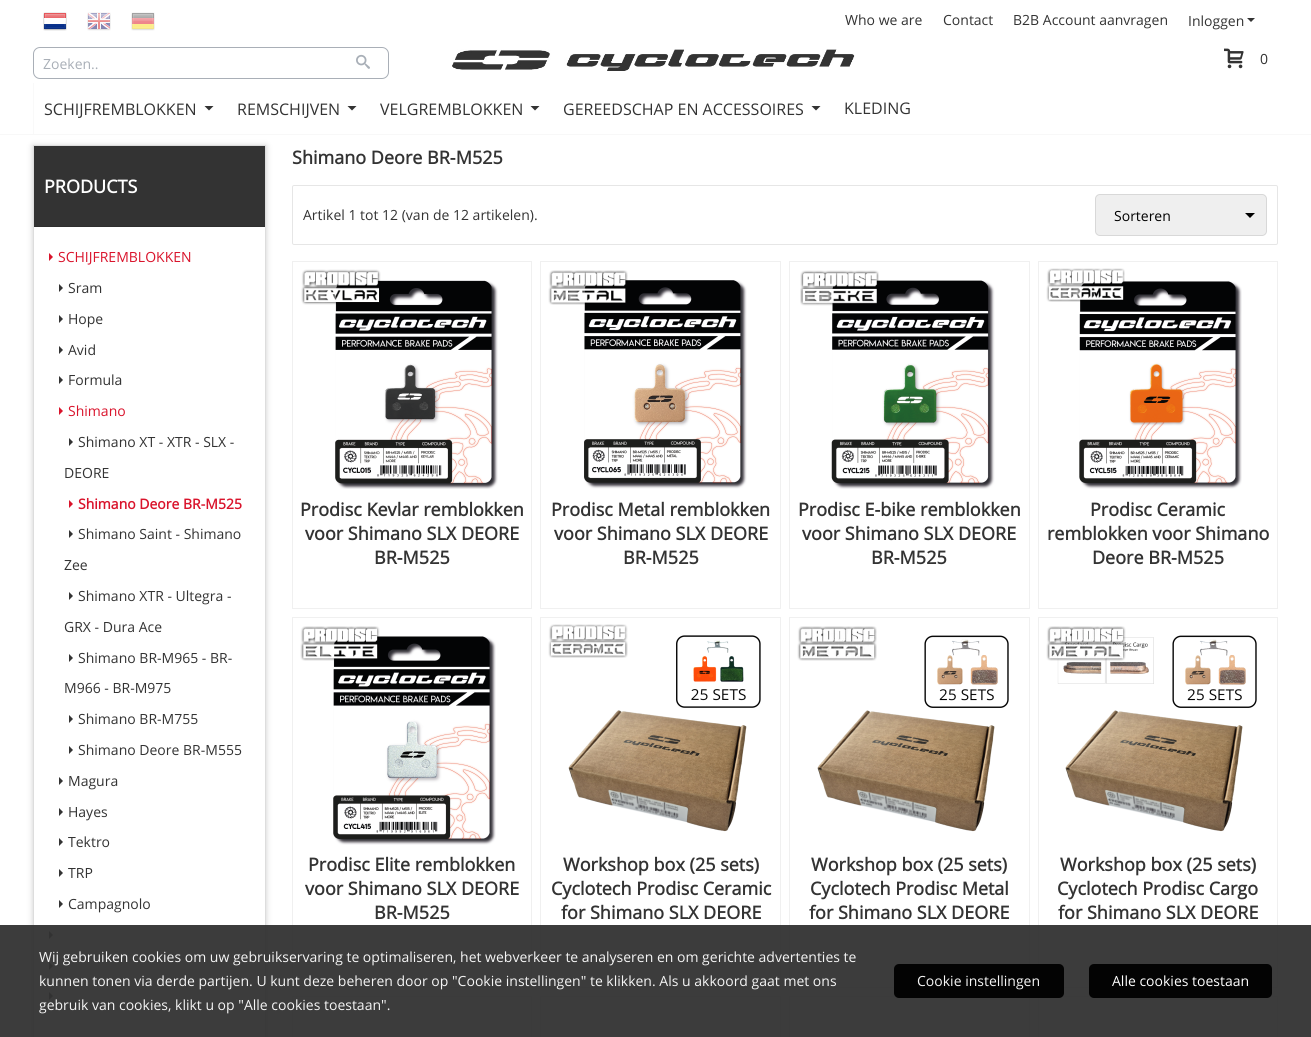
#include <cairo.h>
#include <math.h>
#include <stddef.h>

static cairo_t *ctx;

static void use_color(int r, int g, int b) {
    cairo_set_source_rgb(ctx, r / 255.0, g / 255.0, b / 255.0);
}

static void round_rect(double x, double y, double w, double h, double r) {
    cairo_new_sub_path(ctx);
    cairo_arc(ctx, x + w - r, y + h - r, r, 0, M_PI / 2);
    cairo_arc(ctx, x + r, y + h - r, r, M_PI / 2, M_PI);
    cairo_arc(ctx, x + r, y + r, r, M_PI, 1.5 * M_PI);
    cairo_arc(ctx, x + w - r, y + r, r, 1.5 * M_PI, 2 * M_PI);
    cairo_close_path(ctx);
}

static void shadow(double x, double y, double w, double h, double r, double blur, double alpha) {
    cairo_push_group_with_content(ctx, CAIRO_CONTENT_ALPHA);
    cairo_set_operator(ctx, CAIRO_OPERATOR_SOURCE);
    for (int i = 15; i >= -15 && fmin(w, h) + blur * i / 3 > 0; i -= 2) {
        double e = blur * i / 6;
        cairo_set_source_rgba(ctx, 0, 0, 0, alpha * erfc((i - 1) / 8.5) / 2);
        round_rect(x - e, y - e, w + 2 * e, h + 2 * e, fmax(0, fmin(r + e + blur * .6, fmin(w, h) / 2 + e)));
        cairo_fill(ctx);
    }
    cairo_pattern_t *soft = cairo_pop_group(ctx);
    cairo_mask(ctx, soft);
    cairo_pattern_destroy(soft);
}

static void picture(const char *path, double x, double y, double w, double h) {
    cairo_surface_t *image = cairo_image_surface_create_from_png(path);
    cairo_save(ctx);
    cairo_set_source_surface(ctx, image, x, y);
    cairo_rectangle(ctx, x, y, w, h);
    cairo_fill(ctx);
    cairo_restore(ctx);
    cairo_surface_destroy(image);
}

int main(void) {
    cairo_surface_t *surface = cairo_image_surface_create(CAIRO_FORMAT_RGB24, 1311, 1037);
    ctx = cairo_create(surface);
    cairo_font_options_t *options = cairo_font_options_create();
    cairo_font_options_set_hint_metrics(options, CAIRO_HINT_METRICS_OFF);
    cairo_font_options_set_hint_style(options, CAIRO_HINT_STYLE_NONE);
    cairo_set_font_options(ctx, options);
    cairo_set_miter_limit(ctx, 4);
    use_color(255, 255, 255);
    cairo_paint(ctx);
    picture("img1.png", 43, 12, 24, 19);
    picture("img2.png", 87, 12, 24, 19);
    picture("img3.png", 131, 12, 24, 19);
    cairo_select_font_face(ctx, "Open Sans", CAIRO_FONT_SLANT_NORMAL, CAIRO_FONT_WEIGHT_NORMAL);
    cairo_set_font_size(ctx, 14);
    use_color(51, 51, 51);
    cairo_move_to(ctx, 845, 25);
    cairo_show_text(ctx, "Who we are");
    cairo_move_to(ctx, 943, 25);
    cairo_show_text(ctx, "Contact");
    cairo_move_to(ctx, 1013, 25);
    cairo_show_text(ctx, "B2B Account aanvragen");
    cairo_move_to(ctx, 1188, 26);
    cairo_show_text(ctx, "Inloggen");
    cairo_new_path(ctx);
    cairo_move_to(ctx, 1247, 18);
    cairo_line_to(ctx, 1251, 22);
    cairo_line_to(ctx, 1255, 18);
    cairo_close_path(ctx);
    cairo_fill(ctx);
    round_rect(33.5, 47.5, 355, 31, 6.5);
    use_color(169, 175, 183);
    cairo_set_line_width(ctx, 1);
    cairo_stroke(ctx);
    cairo_move_to(ctx, 43, 69);
    cairo_show_text(ctx, "Zoeken..");
    picture("img4.png", 356, 54, 14, 15);
    picture("img5.png", 452, 49, 403, 22);
    picture("img6.png", 1224, 48, 20, 21);
    use_color(51, 51, 51);
    cairo_move_to(ctx, 1260, 64);
    cairo_show_text(ctx, "0");
    use_color(248, 248, 248);
    cairo_rectangle(ctx, 0, 134, 1311, 1);
    cairo_fill(ctx);
    use_color(249, 249, 249);
    cairo_rectangle(ctx, 33, 83, 1, 51);
    cairo_fill(ctx);
    cairo_set_font_size(ctx, 16);
    use_color(51, 51, 51);
    cairo_move_to(ctx, 44, 115);
    cairo_show_text(ctx, "SCHIJFREMBLOKKEN");
    cairo_new_path(ctx);
    cairo_move_to(ctx, 204.5, 106);
    cairo_line_to(ctx, 209, 110.5);
    cairo_line_to(ctx, 213.5, 106);
    cairo_close_path(ctx);
    cairo_fill(ctx);
    cairo_move_to(ctx, 237, 115);
    cairo_show_text(ctx, "REMSCHIJVEN");
    cairo_new_path(ctx);
    cairo_move_to(ctx, 347.5, 106);
    cairo_line_to(ctx, 352, 110.5);
    cairo_line_to(ctx, 356.5, 106);
    cairo_close_path(ctx);
    cairo_fill(ctx);
    cairo_move_to(ctx, 380, 115);
    cairo_show_text(ctx, "VELGREMBLOKKEN");
    cairo_new_path(ctx);
    cairo_move_to(ctx, 530.5, 106);
    cairo_line_to(ctx, 535, 110.5);
    cairo_line_to(ctx, 539.5, 106);
    cairo_close_path(ctx);
    cairo_fill(ctx);
    cairo_move_to(ctx, 563, 115);
    cairo_show_text(ctx, "GEREEDSCHAP EN ACCESSOIRES");
    cairo_new_path(ctx);
    cairo_move_to(ctx, 811.5, 106);
    cairo_line_to(ctx, 816, 110.5);
    cairo_line_to(ctx, 820.5, 106);
    cairo_close_path(ctx);
    cairo_fill(ctx);
    cairo_move_to(ctx, 844, 114);
    cairo_show_text(ctx, "KLEDING");
    cairo_save(ctx);
    cairo_set_fill_rule(ctx, CAIRO_FILL_RULE_EVEN_ODD);
    cairo_new_path(ctx);
    cairo_move_to(ctx, 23, 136);
    cairo_line_to(ctx, 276, 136);
    cairo_line_to(ctx, 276, 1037);
    cairo_line_to(ctx, 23, 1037);
    cairo_close_path(ctx);
    cairo_move_to(ctx, 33, 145);
    cairo_line_to(ctx, 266, 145);
    cairo_line_to(ctx, 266, 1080);
    cairo_line_to(ctx, 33, 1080);
    cairo_close_path(ctx);
    cairo_clip(ctx);
    use_color(204, 204, 204);
    shadow(33, 146, 233, 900, 0, 3, 1);
    cairo_restore(ctx);
    cairo_rectangle(ctx, 33.5, 145.5, 232, 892);
    use_color(221, 221, 221);
    cairo_stroke(ctx);
    use_color(51, 51, 51);
    cairo_rectangle(ctx, 34, 146, 231, 80);
    cairo_fill(ctx);
    use_color(46, 46, 46);
    cairo_rectangle(ctx, 34, 226, 231, 1);
    cairo_fill(ctx);
    cairo_select_font_face(ctx, "Open Sans", CAIRO_FONT_SLANT_NORMAL, CAIRO_FONT_WEIGHT_BOLD);
    cairo_set_font_size(ctx, 18);
    use_color(255, 255, 255);
    cairo_move_to(ctx, 44, 193);
    cairo_show_text(ctx, "PRODUCTS");
    cairo_select_font_face(ctx, "Open Sans", CAIRO_FONT_SLANT_NORMAL, CAIRO_FONT_WEIGHT_NORMAL);
    cairo_set_font_size(ctx, 14);
    use_color(217, 20, 44);
    cairo_move_to(ctx, 58, 262);
    cairo_show_text(ctx, "SCHIJFREMBLOKKEN");
    cairo_new_path(ctx);
    cairo_move_to(ctx, 49, 261);
    cairo_line_to(ctx, 53, 257);
    cairo_line_to(ctx, 49, 253);
    cairo_close_path(ctx);
    cairo_fill(ctx);
    use_color(51, 51, 51);
    cairo_move_to(ctx, 68, 293);
    cairo_show_text(ctx, "Sram");
    cairo_new_path(ctx);
    cairo_move_to(ctx, 59, 292);
    cairo_line_to(ctx, 63, 288);
    cairo_line_to(ctx, 59, 284);
    cairo_close_path(ctx);
    cairo_move_to(ctx, 59, 323);
    cairo_line_to(ctx, 63, 319);
    cairo_line_to(ctx, 59, 315);
    cairo_close_path(ctx);
    cairo_fill(ctx);
    cairo_move_to(ctx, 68, 324);
    cairo_show_text(ctx, "Hope");
    cairo_move_to(ctx, 68, 355);
    cairo_show_text(ctx, "Avid");
    cairo_new_path(ctx);
    cairo_move_to(ctx, 59, 354);
    cairo_line_to(ctx, 63, 350);
    cairo_line_to(ctx, 59, 346);
    cairo_close_path(ctx);
    cairo_move_to(ctx, 59, 384);
    cairo_line_to(ctx, 63, 380);
    cairo_line_to(ctx, 59, 376);
    cairo_close_path(ctx);
    cairo_fill(ctx);
    cairo_move_to(ctx, 68, 385);
    cairo_show_text(ctx, "Formula");
    use_color(217, 20, 44);
    cairo_move_to(ctx, 68, 416);
    cairo_show_text(ctx, "Shimano");
    cairo_new_path(ctx);
    cairo_move_to(ctx, 59, 415);
    cairo_line_to(ctx, 63, 411);
    cairo_line_to(ctx, 59, 407);
    cairo_close_path(ctx);
    cairo_fill(ctx);
    use_color(51, 51, 51);
    cairo_move_to(ctx, 78, 447);
    cairo_show_text(ctx, "Shimano XT - XTR - SLX -");
    cairo_new_path(ctx);
    cairo_move_to(ctx, 69, 446);
    cairo_line_to(ctx, 73, 442);
    cairo_line_to(ctx, 69, 438);
    cairo_close_path(ctx);
    cairo_fill(ctx);
    cairo_move_to(ctx, 64, 478);
    cairo_show_text(ctx, "DEORE");
    cairo_select_font_face(ctx, "Open Sans", CAIRO_FONT_SLANT_NORMAL, CAIRO_FONT_WEIGHT_BOLD);
    use_color(217, 20, 44);
    cairo_move_to(ctx, 78, 509);
    cairo_show_text(ctx, "Shimano Deore BR-M525");
    cairo_new_path(ctx);
    cairo_move_to(ctx, 69, 508);
    cairo_line_to(ctx, 73, 504);
    cairo_line_to(ctx, 69, 500);
    cairo_close_path(ctx);
    cairo_fill(ctx);
    cairo_select_font_face(ctx, "Open Sans", CAIRO_FONT_SLANT_NORMAL, CAIRO_FONT_WEIGHT_NORMAL);
    use_color(51, 51, 51);
    cairo_move_to(ctx, 78, 539);
    cairo_show_text(ctx, "Shimano Saint - Shimano");
    cairo_new_path(ctx);
    cairo_move_to(ctx, 69, 538);
    cairo_line_to(ctx, 73, 534);
    cairo_line_to(ctx, 69, 530);
    cairo_close_path(ctx);
    cairo_fill(ctx);
    cairo_move_to(ctx, 64, 570);
    cairo_show_text(ctx, "Zee");
    cairo_move_to(ctx, 78, 601);
    cairo_show_text(ctx, "Shimano XTR - Ultegra -");
    cairo_new_path(ctx);
    cairo_move_to(ctx, 69, 600);
    cairo_line_to(ctx, 73, 596);
    cairo_line_to(ctx, 69, 592);
    cairo_close_path(ctx);
    cairo_fill(ctx);
    cairo_move_to(ctx, 64, 632);
    cairo_show_text(ctx, "GRX - Dura Ace");
    cairo_move_to(ctx, 78, 663);
    cairo_show_text(ctx, "Shimano BR-M965 - BR-");
    cairo_new_path(ctx);
    cairo_move_to(ctx, 69, 662);
    cairo_line_to(ctx, 73, 658);
    cairo_line_to(ctx, 69, 654);
    cairo_close_path(ctx);
    cairo_fill(ctx);
    cairo_move_to(ctx, 64, 693);
    cairo_show_text(ctx, "M966 - BR-M975");
    cairo_move_to(ctx, 78, 724);
    cairo_show_text(ctx, "Shimano BR-M755");
    cairo_new_path(ctx);
    cairo_move_to(ctx, 69, 723);
    cairo_line_to(ctx, 73, 719);
    cairo_line_to(ctx, 69, 715);
    cairo_close_path(ctx);
    cairo_move_to(ctx, 69, 754);
    cairo_line_to(ctx, 73, 750);
    cairo_line_to(ctx, 69, 746);
    cairo_close_path(ctx);
    cairo_fill(ctx);
    cairo_move_to(ctx, 78, 755);
    cairo_show_text(ctx, "Shimano Deore BR-M555");
    cairo_move_to(ctx, 68, 786);
    cairo_show_text(ctx, "Magura");
    cairo_new_path(ctx);
    cairo_move_to(ctx, 59, 785);
    cairo_line_to(ctx, 63, 781);
    cairo_line_to(ctx, 59, 777);
    cairo_close_path(ctx);
    cairo_move_to(ctx, 59, 816);
    cairo_line_to(ctx, 63, 812);
    cairo_line_to(ctx, 59, 808);
    cairo_close_path(ctx);
    cairo_fill(ctx);
    cairo_move_to(ctx, 68, 817);
    cairo_show_text(ctx, "Hayes");
    cairo_move_to(ctx, 68, 847);
    cairo_show_text(ctx, "Tektro");
    cairo_new_path(ctx);
    cairo_move_to(ctx, 59, 846);
    cairo_line_to(ctx, 63, 842);
    cairo_line_to(ctx, 59, 838);
    cairo_close_path(ctx);
    cairo_move_to(ctx, 59, 877);
    cairo_line_to(ctx, 63, 873);
    cairo_line_to(ctx, 59, 869);
    cairo_close_path(ctx);
    cairo_fill(ctx);
    cairo_move_to(ctx, 68, 878);
    cairo_show_text(ctx, "TRP");
    cairo_move_to(ctx, 68, 909);
    cairo_show_text(ctx, "Campagnolo");
    cairo_new_path(ctx);
    cairo_move_to(ctx, 59, 908);
    cairo_line_to(ctx, 63, 904);
    cairo_line_to(ctx, 59, 900);
    cairo_close_path(ctx);
    cairo_move_to(ctx, 49, 939);
    cairo_line_to(ctx, 53, 935);
    cairo_line_to(ctx, 49, 931);
    cairo_close_path(ctx);
    cairo_fill(ctx);
    cairo_new_path(ctx);
    cairo_move_to(ctx, 49, 970);
    cairo_line_to(ctx, 53, 966);
    cairo_line_to(ctx, 49, 962);
    cairo_close_path(ctx);
    cairo_move_to(ctx, 49, 1000);
    cairo_line_to(ctx, 53, 996);
    cairo_line_to(ctx, 49, 992);
    cairo_close_path(ctx);
    cairo_fill(ctx);
    cairo_select_font_face(ctx, "Open Sans", CAIRO_FONT_SLANT_NORMAL, CAIRO_FONT_WEIGHT_BOLD);
    cairo_set_font_size(ctx, 18);
    cairo_move_to(ctx, 292, 164);
    cairo_show_text(ctx, "Shimano Deore BR-M525");
    round_rect(292.5, 185.5, 985, 59, 1.5);
    use_color(230, 230, 230);
    cairo_stroke(ctx);
    cairo_select_font_face(ctx, "Open Sans", CAIRO_FONT_SLANT_NORMAL, CAIRO_FONT_WEIGHT_NORMAL);
    cairo_set_font_size(ctx, 14);
    use_color(51, 51, 51);
    cairo_move_to(ctx, 303, 220);
    cairo_show_text(ctx, "Artikel 1 tot 12 (van de 12 artikelen).");
    use_color(239, 239, 239);
    round_rect(1095, 194, 172, 42, 5);
    cairo_fill(ctx);
    use_color(0, 0, 0);
    cairo_new_path(ctx);
    cairo_move_to(ctx, 1245, 213);
    cairo_line_to(ctx, 1250, 218);
    cairo_line_to(ctx, 1255, 213);
    cairo_close_path(ctx);
    cairo_fill(ctx);
    round_rect(1095.5, 194.5, 171, 41, 4.5);
    cairo_set_source_rgba(ctx, 0, 0, 0, 0.1);
    cairo_stroke(ctx);
    use_color(0, 0, 0);
    cairo_move_to(ctx, 1114, 221);
    cairo_show_text(ctx, "Sorteren");
    cairo_rectangle(ctx, 292.5, 261.5, 239, 347);
    use_color(240, 240, 240);
    cairo_stroke(ctx);
    picture("img8.png", 335, 280, 163, 209);
    picture("img7.png", 301, 269, 80, 36);
    cairo_select_font_face(ctx, "Open Sans", CAIRO_FONT_SLANT_NORMAL, CAIRO_FONT_WEIGHT_BOLD);
    cairo_set_font_size(ctx, 18);
    use_color(51, 51, 51);
    cairo_move_to(ctx, 300, 516);
    cairo_show_text(ctx, "Prodisc Kevlar remblokken");
    cairo_move_to(ctx, 305, 540);
    cairo_show_text(ctx, "voor Shimano SLX DEORE");
    cairo_move_to(ctx, 374, 564);
    cairo_show_text(ctx, "BR-M525");
    cairo_rectangle(ctx, 540.5, 261.5, 240, 347);
    use_color(240, 240, 240);
    cairo_stroke(ctx);
    picture("img10.png", 584, 280, 163, 209);
    picture("img9.png", 548, 270, 80, 35);
    use_color(51, 51, 51);
    cairo_move_to(ctx, 551, 516);
    cairo_show_text(ctx, "Prodisc Metal remblokken");
    cairo_move_to(ctx, 554, 540);
    cairo_show_text(ctx, "voor Shimano SLX DEORE");
    cairo_move_to(ctx, 623, 564);
    cairo_show_text(ctx, "BR-M525");
    cairo_rectangle(ctx, 789.5, 261.5, 240, 347);
    use_color(240, 240, 240);
    cairo_stroke(ctx);
    picture("img12.png", 831, 280, 164, 209);
    picture("img11.png", 800, 270, 79, 36);
    use_color(51, 51, 51);
    cairo_move_to(ctx, 798, 516);
    cairo_show_text(ctx, "Prodisc E-bike remblokken");
    cairo_move_to(ctx, 802, 540);
    cairo_show_text(ctx, "voor Shimano SLX DEORE");
    cairo_move_to(ctx, 871, 564);
    cairo_show_text(ctx, "BR-M525");
    cairo_rectangle(ctx, 1038.5, 261.5, 239, 347);
    use_color(240, 240, 240);
    cairo_stroke(ctx);
    picture("img14.png", 1079, 281, 163, 208);
    picture("img13.png", 1046, 268, 79, 34);
    use_color(51, 51, 51);
    cairo_move_to(ctx, 1090, 516);
    cairo_show_text(ctx, "Prodisc Ceramic");
    cairo_move_to(ctx, 1047, 540);
    cairo_show_text(ctx, "remblokken voor Shimano");
    cairo_move_to(ctx, 1092, 564);
    cairo_show_text(ctx, "Deore BR-M525");
    cairo_rectangle(ctx, 292.5, 617.5, 239, 370);
    use_color(240, 240, 240);
    cairo_stroke(ctx);
    picture("img16.png", 333, 636, 163, 209);
    picture("img15.png", 300, 626, 80, 35);
    use_color(51, 51, 51);
    cairo_move_to(ctx, 308, 871);
    cairo_show_text(ctx, "Prodisc Elite remblokken");
    cairo_move_to(ctx, 305, 895);
    cairo_show_text(ctx, "voor Shimano SLX DEORE");
    cairo_move_to(ctx, 374, 919);
    cairo_show_text(ctx, "BR-M525");
    cairo_rectangle(ctx, 540.5, 617.5, 240, 370);
    use_color(240, 240, 240);
    cairo_stroke(ctx);
    picture("img18.png", 568, 635, 193, 197);
    picture("img17.png", 548, 624, 80, 34);
    use_color(51, 51, 51);
    cairo_move_to(ctx, 563, 871);
    cairo_show_text(ctx, "Workshop box (25 sets)");
    cairo_move_to(ctx, 551, 895);
    cairo_show_text(ctx, "Cyclotech Prodisc Ceramic");
    cairo_move_to(ctx, 561, 919);
    cairo_show_text(ctx, "for Shimano SLX DEORE");
    cairo_rectangle(ctx, 789.5, 617.5, 240, 370);
    use_color(240, 240, 240);
    cairo_stroke(ctx);
    picture("img20.png", 817, 635, 192, 197);
    picture("img19.png", 797, 626, 80, 35);
    use_color(51, 51, 51);
    cairo_move_to(ctx, 811, 871);
    cairo_show_text(ctx, "Workshop box (25 sets)");
    cairo_move_to(ctx, 810, 895);
    cairo_show_text(ctx, "Cyclotech Prodisc Metal");
    cairo_move_to(ctx, 809, 919);
    cairo_show_text(ctx, "for Shimano SLX DEORE");
    cairo_rectangle(ctx, 1038.5, 617.5, 239, 370);
    use_color(240, 240, 240);
    cairo_stroke(ctx);
    picture("img22.png", 1057, 635, 200, 197);
    picture("img21.png", 1046, 626, 80, 35);
    use_color(51, 51, 51);
    cairo_move_to(ctx, 1060, 871);
    cairo_show_text(ctx, "Workshop box (25 sets)");
    cairo_move_to(ctx, 1057, 895);
    cairo_show_text(ctx, "Cyclotech Prodisc Cargo");
    cairo_move_to(ctx, 1058, 919);
    cairo_show_text(ctx, "for Shimano SLX DEORE");
    cairo_rectangle(ctx, 292.5, 996.5, 239, 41);
    use_color(240, 240, 240);
    cairo_stroke(ctx);
    cairo_rectangle(ctx, 540.5, 996.5, 240, 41);
    cairo_stroke(ctx);
    cairo_rectangle(ctx, 789.5, 996.5, 240, 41);
    cairo_stroke(ctx);
    cairo_rectangle(ctx, 1038.5, 996.5, 239, 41);
    cairo_stroke(ctx);
    cairo_set_source_rgba(ctx, 0.2, 0.2, 0.2, 0.95);
    cairo_rectangle(ctx, 0, 925, 1311, 112);
    cairo_fill(ctx);
    cairo_select_font_face(ctx, "Open Sans", CAIRO_FONT_SLANT_NORMAL, CAIRO_FONT_WEIGHT_NORMAL);
    cairo_set_font_size(ctx, 14);
    use_color(245, 245, 245);
    cairo_move_to(ctx, 39, 962);
    cairo_show_text(ctx, "Wij gebruiken cookies om uw gebruikservaring te optimaliseren, het webverkeer te analyseren en om gerichte advertenties te");
    cairo_move_to(ctx, 39, 986);
    cairo_show_text(ctx, "kunnen tonen via derde partijen. U kunt deze beheren door op \"Cookie instellingen\" te klikken. Als u akkoord gaat met ons");
    cairo_move_to(ctx, 39, 1010);
    cairo_show_text(ctx, "gebruik van cookies, klikt u op \"Alle cookies toestaan\".");
    use_color(3, 3, 3);
    round_rect(894, 964, 170, 34, 5);
    cairo_fill(ctx);
    use_color(245, 245, 245);
    cairo_move_to(ctx, 917, 986);
    cairo_show_text(ctx, "Cookie instellingen");
    use_color(3, 3, 3);
    round_rect(1089, 964, 183, 34, 5);
    cairo_fill(ctx);
    use_color(255, 255, 255);
    cairo_move_to(ctx, 1112, 986);
    cairo_show_text(ctx, "Alle cookies toestaan");
    cairo_surface_write_to_png(surface, "result.png");
    cairo_font_options_destroy(options);
    cairo_destroy(ctx);
    cairo_surface_destroy(surface);
    return 0;
}
